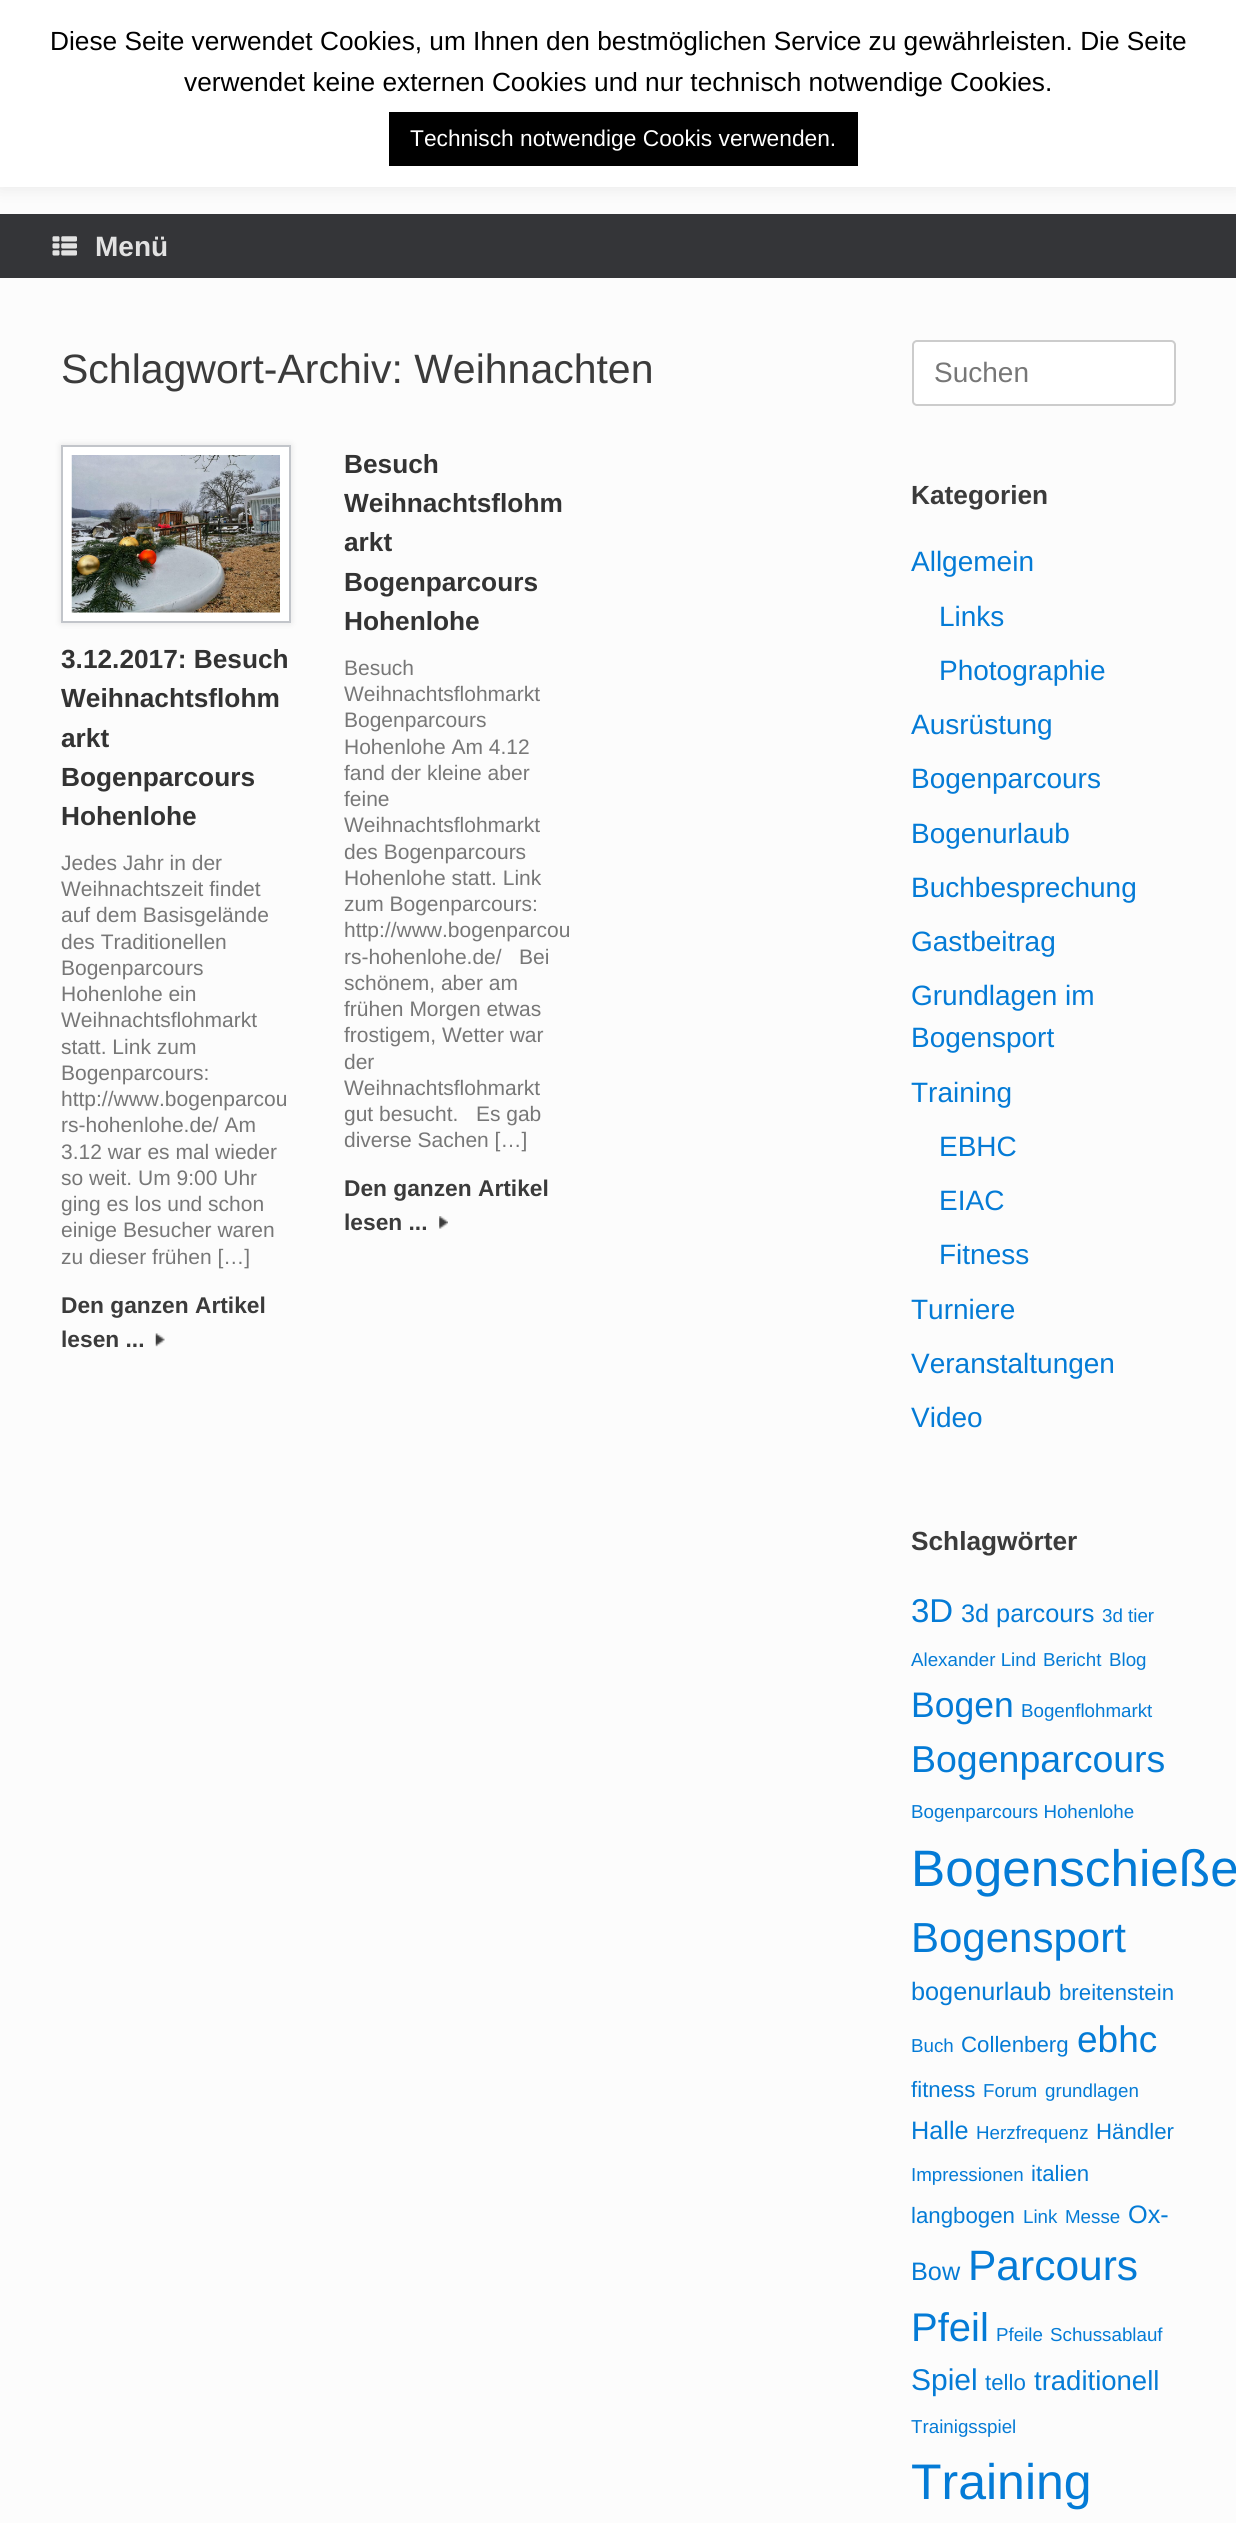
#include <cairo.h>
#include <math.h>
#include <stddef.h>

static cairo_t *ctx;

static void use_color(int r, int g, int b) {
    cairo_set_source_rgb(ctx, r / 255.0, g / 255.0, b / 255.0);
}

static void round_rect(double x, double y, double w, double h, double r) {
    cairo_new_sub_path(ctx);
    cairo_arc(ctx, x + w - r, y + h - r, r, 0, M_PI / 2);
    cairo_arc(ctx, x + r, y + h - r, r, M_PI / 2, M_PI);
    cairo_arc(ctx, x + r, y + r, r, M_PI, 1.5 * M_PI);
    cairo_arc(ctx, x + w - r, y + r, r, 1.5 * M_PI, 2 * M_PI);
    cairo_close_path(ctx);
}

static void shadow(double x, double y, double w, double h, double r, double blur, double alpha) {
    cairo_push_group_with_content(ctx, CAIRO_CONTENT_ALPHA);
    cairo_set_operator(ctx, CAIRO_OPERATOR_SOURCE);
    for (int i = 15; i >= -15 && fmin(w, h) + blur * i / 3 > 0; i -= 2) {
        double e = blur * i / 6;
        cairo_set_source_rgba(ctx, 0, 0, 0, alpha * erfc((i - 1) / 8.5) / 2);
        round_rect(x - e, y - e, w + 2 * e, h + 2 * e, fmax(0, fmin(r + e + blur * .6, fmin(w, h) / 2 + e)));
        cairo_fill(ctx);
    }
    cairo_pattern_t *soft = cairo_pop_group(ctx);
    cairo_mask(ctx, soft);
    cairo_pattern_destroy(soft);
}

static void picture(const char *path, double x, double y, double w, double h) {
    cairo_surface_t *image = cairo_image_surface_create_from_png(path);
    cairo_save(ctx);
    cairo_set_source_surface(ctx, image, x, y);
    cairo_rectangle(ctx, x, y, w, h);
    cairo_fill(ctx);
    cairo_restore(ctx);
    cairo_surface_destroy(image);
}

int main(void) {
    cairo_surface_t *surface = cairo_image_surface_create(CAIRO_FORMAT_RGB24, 1236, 2523);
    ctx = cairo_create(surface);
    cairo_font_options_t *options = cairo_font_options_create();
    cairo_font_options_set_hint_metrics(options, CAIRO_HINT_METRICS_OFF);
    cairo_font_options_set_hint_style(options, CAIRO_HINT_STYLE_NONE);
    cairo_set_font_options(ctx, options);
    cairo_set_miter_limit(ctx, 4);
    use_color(252, 252, 252);
    cairo_paint(ctx);
    use_color(172, 171, 171);
    shadow(0, -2, 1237, 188, 0, 9, 0.3);
    use_color(255, 255, 255);
    cairo_rectangle(ctx, 0, 0, 1236, 187);
    cairo_fill(ctx);
    cairo_select_font_face(ctx, "Liberation Sans", CAIRO_FONT_SLANT_NORMAL, CAIRO_FONT_WEIGHT_NORMAL);
    cairo_set_font_size(ctx, 26.25);
    use_color(0, 0, 0);
    cairo_move_to(ctx, 50, 50);
    cairo_show_text(ctx, "Diese Seite verwendet Cookies, um Ihnen den bestmöglichen Service zu gewährleisten. Die Seite");
    cairo_move_to(ctx, 184, 91);
    cairo_show_text(ctx, "verwendet keine externen Cookies und nur technisch notwendige Cookies.");
    cairo_rectangle(ctx, 389, 112, 469, 54);
    cairo_fill(ctx);
    cairo_set_font_size(ctx, 22.75);
    use_color(255, 255, 255);
    cairo_move_to(ctx, 410, 146);
    cairo_show_text(ctx, "Technisch notwendige Cookis verwenden.");
    use_color(52, 53, 56);
    cairo_rectangle(ctx, 0, 214, 1236, 64);
    cairo_fill(ctx);
    picture("img1.png", 52, 236, 25, 20);
    cairo_select_font_face(ctx, "Liberation Sans", CAIRO_FONT_SLANT_NORMAL, CAIRO_FONT_WEIGHT_BOLD);
    cairo_set_font_size(ctx, 28);
    use_color(226, 226, 226);
    cairo_move_to(ctx, 95, 256);
    cairo_show_text(ctx, "Menü");
    cairo_select_font_face(ctx, "Liberation Sans", CAIRO_FONT_SLANT_NORMAL, CAIRO_FONT_WEIGHT_NORMAL);
    cairo_set_font_size(ctx, 41);
    use_color(59, 59, 59);
    cairo_move_to(ctx, 61, 383);
    cairo_show_text(ctx, "Schlagwort-Archiv: Weihnachten");
    use_color(0, 0, 0);
    shadow(61, 445, 230, 178, 0, 3.5, 0.1);
    use_color(255, 255, 255);
    cairo_rectangle(ctx, 62, 446, 228, 176);
    cairo_fill_preserve(ctx);
    use_color(194, 197, 202);
    cairo_stroke(ctx);
    picture("img2.png", 71, 455, 209, 158);
    cairo_select_font_face(ctx, "Liberation Sans", CAIRO_FONT_SLANT_NORMAL, CAIRO_FONT_WEIGHT_BOLD);
    cairo_set_font_size(ctx, 26.25);
    use_color(51, 51, 51);
    cairo_move_to(ctx, 61, 668);
    cairo_show_text(ctx, "3.12.2017: Besuch");
    cairo_move_to(ctx, 61, 707);
    cairo_show_text(ctx, "Weihnachtsflohm");
    cairo_move_to(ctx, 61, 747);
    cairo_show_text(ctx, "arkt");
    cairo_move_to(ctx, 61, 786);
    cairo_show_text(ctx, "Bogenparcours");
    cairo_move_to(ctx, 61, 825);
    cairo_show_text(ctx, "Hohenlohe");
    cairo_select_font_face(ctx, "Liberation Sans", CAIRO_FONT_SLANT_NORMAL, CAIRO_FONT_WEIGHT_NORMAL);
    cairo_set_font_size(ctx, 21);
    use_color(119, 119, 119);
    cairo_move_to(ctx, 61, 870);
    cairo_show_text(ctx, "Jedes Jahr in der");
    cairo_move_to(ctx, 61, 896);
    cairo_show_text(ctx, "Weihnachtszeit findet");
    cairo_move_to(ctx, 61, 922);
    cairo_show_text(ctx, "auf dem Basisgelände");
    cairo_move_to(ctx, 61, 949);
    cairo_show_text(ctx, "des Traditionellen");
    cairo_move_to(ctx, 61, 975);
    cairo_show_text(ctx, "Bogenparcours");
    cairo_move_to(ctx, 61, 1001);
    cairo_show_text(ctx, "Hohenlohe ein");
    cairo_move_to(ctx, 61, 1027);
    cairo_show_text(ctx, "Weihnachtsflohmarkt");
    cairo_move_to(ctx, 61, 1054);
    cairo_show_text(ctx, "statt. Link zum");
    cairo_move_to(ctx, 61, 1080);
    cairo_show_text(ctx, "Bogenparcours:");
    cairo_move_to(ctx, 61, 1106);
    cairo_show_text(ctx, "http://www.bogenparcou");
    cairo_move_to(ctx, 61, 1132);
    cairo_show_text(ctx, "rs-hohenlohe.de/ Am");
    cairo_move_to(ctx, 61, 1159);
    cairo_show_text(ctx, "3.12 war es mal wieder");
    cairo_move_to(ctx, 61, 1185);
    cairo_show_text(ctx, "so weit. Um 9:00 Uhr");
    cairo_move_to(ctx, 61, 1211);
    cairo_show_text(ctx, "ging es los und schon");
    cairo_move_to(ctx, 61, 1237);
    cairo_show_text(ctx, "einige Besucher waren");
    cairo_move_to(ctx, 61, 1264);
    cairo_show_text(ctx, "zu dieser frühen […]");
    cairo_select_font_face(ctx, "Liberation Sans", CAIRO_FONT_SLANT_NORMAL, CAIRO_FONT_WEIGHT_BOLD);
    cairo_set_font_size(ctx, 22.75);
    use_color(59, 59, 59);
    cairo_move_to(ctx, 61, 1313);
    cairo_show_text(ctx, "Den ganzen Artikel");
    cairo_move_to(ctx, 61, 1347);
    cairo_show_text(ctx, "lesen ...");
    picture("img3.png", 155, 1333, 10, 14);
    cairo_set_font_size(ctx, 26.25);
    use_color(51, 51, 51);
    cairo_move_to(ctx, 344, 473);
    cairo_show_text(ctx, "Besuch");
    cairo_move_to(ctx, 344, 512);
    cairo_show_text(ctx, "Weihnachtsflohm");
    cairo_move_to(ctx, 344, 551);
    cairo_show_text(ctx, "arkt");
    cairo_move_to(ctx, 344, 591);
    cairo_show_text(ctx, "Bogenparcours");
    cairo_move_to(ctx, 344, 630);
    cairo_show_text(ctx, "Hohenlohe");
    cairo_select_font_face(ctx, "Liberation Sans", CAIRO_FONT_SLANT_NORMAL, CAIRO_FONT_WEIGHT_NORMAL);
    cairo_set_font_size(ctx, 21);
    use_color(119, 119, 119);
    cairo_move_to(ctx, 344, 675);
    cairo_show_text(ctx, "Besuch");
    cairo_move_to(ctx, 344, 701);
    cairo_show_text(ctx, "Weihnachtsflohmarkt");
    cairo_move_to(ctx, 344, 727);
    cairo_show_text(ctx, "Bogenparcours");
    cairo_move_to(ctx, 344, 754);
    cairo_show_text(ctx, "Hohenlohe Am 4.12");
    cairo_move_to(ctx, 344, 780);
    cairo_show_text(ctx, "fand der kleine aber");
    cairo_move_to(ctx, 344, 806);
    cairo_show_text(ctx, "feine");
    cairo_move_to(ctx, 344, 832);
    cairo_show_text(ctx, "Weihnachtsflohmarkt");
    cairo_move_to(ctx, 344, 859);
    cairo_show_text(ctx, "des Bogenparcours");
    cairo_move_to(ctx, 344, 885);
    cairo_show_text(ctx, "Hohenlohe statt. Link");
    cairo_move_to(ctx, 344, 911);
    cairo_show_text(ctx, "zum Bogenparcours:");
    cairo_move_to(ctx, 344, 937);
    cairo_show_text(ctx, "http://www.bogenparcou");
    cairo_move_to(ctx, 344, 964);
    cairo_show_text(ctx, "rs-hohenlohe.de/   Bei");
    cairo_move_to(ctx, 344, 990);
    cairo_show_text(ctx, "schönem, aber am");
    cairo_move_to(ctx, 344, 1016);
    cairo_show_text(ctx, "frühen Morgen etwas");
    cairo_move_to(ctx, 344, 1042);
    cairo_show_text(ctx, "frostigem, Wetter war");
    cairo_move_to(ctx, 344, 1069);
    cairo_show_text(ctx, "der");
    cairo_move_to(ctx, 344, 1095);
    cairo_show_text(ctx, "Weihnachtsflohmarkt");
    cairo_move_to(ctx, 344, 1121);
    cairo_show_text(ctx, "gut besucht.   Es gab");
    cairo_move_to(ctx, 344, 1147);
    cairo_show_text(ctx, "diverse Sachen […]");
    cairo_select_font_face(ctx, "Liberation Sans", CAIRO_FONT_SLANT_NORMAL, CAIRO_FONT_WEIGHT_BOLD);
    cairo_set_font_size(ctx, 22.75);
    use_color(59, 59, 59);
    cairo_move_to(ctx, 344, 1196);
    cairo_show_text(ctx, "Den ganzen Artikel");
    cairo_move_to(ctx, 344, 1230);
    cairo_show_text(ctx, "lesen ...");
    picture("img4.png", 439, 1216, 9, 13);
    use_color(255, 255, 255);
    round_rect(913, 341, 262, 64, 4);
    cairo_fill_preserve(ctx);
    use_color(204, 204, 204);
    cairo_stroke(ctx);
    cairo_select_font_face(ctx, "Liberation Sans", CAIRO_FONT_SLANT_NORMAL, CAIRO_FONT_WEIGHT_NORMAL);
    cairo_set_font_size(ctx, 28);
    use_color(119, 119, 119);
    cairo_move_to(ctx, 934, 382);
    cairo_show_text(ctx, "Suchen");
    cairo_select_font_face(ctx, "Liberation Sans", CAIRO_FONT_SLANT_NORMAL, CAIRO_FONT_WEIGHT_BOLD);
    cairo_set_font_size(ctx, 26.25);
    use_color(59, 59, 59);
    cairo_move_to(ctx, 911, 504);
    cairo_show_text(ctx, "Kategorien");
    cairo_select_font_face(ctx, "Liberation Sans", CAIRO_FONT_SLANT_NORMAL, CAIRO_FONT_WEIGHT_NORMAL);
    cairo_set_font_size(ctx, 28);
    use_color(4, 123, 214);
    cairo_move_to(ctx, 911, 571);
    cairo_show_text(ctx, "Allgemein");
    cairo_move_to(ctx, 939, 626);
    cairo_show_text(ctx, "Links");
    cairo_move_to(ctx, 939, 680);
    cairo_show_text(ctx, "Photographie");
    cairo_move_to(ctx, 911, 734);
    cairo_show_text(ctx, "Ausrüstung");
    cairo_move_to(ctx, 911, 788);
    cairo_show_text(ctx, "Bogenparcours");
    cairo_move_to(ctx, 911, 843);
    cairo_show_text(ctx, "Bogenurlaub");
    cairo_move_to(ctx, 911, 897);
    cairo_show_text(ctx, "Buchbesprechung");
    cairo_move_to(ctx, 911, 951);
    cairo_show_text(ctx, "Gastbeitrag");
    cairo_move_to(ctx, 911, 1005);
    cairo_show_text(ctx, "Grundlagen im");
    cairo_move_to(ctx, 911, 1047);
    cairo_show_text(ctx, "Bogensport");
    cairo_move_to(ctx, 911, 1102);
    cairo_show_text(ctx, "Training");
    cairo_move_to(ctx, 939, 1156);
    cairo_show_text(ctx, "EBHC");
    cairo_move_to(ctx, 939, 1210);
    cairo_show_text(ctx, "EIAC");
    cairo_move_to(ctx, 939, 1264);
    cairo_show_text(ctx, "Fitness");
    cairo_move_to(ctx, 911, 1319);
    cairo_show_text(ctx, "Turniere");
    cairo_move_to(ctx, 911, 1373);
    cairo_show_text(ctx, "Veranstaltungen");
    cairo_move_to(ctx, 911, 1427);
    cairo_show_text(ctx, "Video");
    cairo_select_font_face(ctx, "Liberation Sans", CAIRO_FONT_SLANT_NORMAL, CAIRO_FONT_WEIGHT_BOLD);
    cairo_set_font_size(ctx, 26.25);
    use_color(59, 59, 59);
    cairo_move_to(ctx, 911, 1550);
    cairo_show_text(ctx, "Schlagwörter");
    cairo_select_font_face(ctx, "Liberation Sans", CAIRO_FONT_SLANT_NORMAL, CAIRO_FONT_WEIGHT_NORMAL);
    cairo_set_font_size(ctx, 33);
    use_color(4, 123, 214);
    cairo_move_to(ctx, 911, 1622);
    cairo_show_text(ctx, "3D");
    cairo_set_font_size(ctx, 25.25);
    cairo_move_to(ctx, 961, 1622);
    cairo_show_text(ctx, "3d parcours");
    cairo_set_font_size(ctx, 18.75);
    cairo_move_to(ctx, 1102, 1622);
    cairo_show_text(ctx, "3d tier");
    cairo_move_to(ctx, 911, 1666);
    cairo_show_text(ctx, "Alexander Lind");
    cairo_move_to(ctx, 1043, 1666);
    cairo_show_text(ctx, "Bericht");
    cairo_move_to(ctx, 1109, 1666);
    cairo_show_text(ctx, "Blog");
    cairo_set_font_size(ctx, 35.5);
    cairo_move_to(ctx, 911, 1717);
    cairo_show_text(ctx, "Bogen");
    cairo_set_font_size(ctx, 18.75);
    cairo_move_to(ctx, 1021, 1717);
    cairo_show_text(ctx, "Bogenflohmarkt");
    cairo_set_font_size(ctx, 37.5);
    cairo_move_to(ctx, 911, 1772);
    cairo_show_text(ctx, "Bogenparcours");
    cairo_set_font_size(ctx, 18.75);
    cairo_move_to(ctx, 911, 1818);
    cairo_show_text(ctx, "Bogenparcours Hohenlohe");
    cairo_set_font_size(ctx, 51.25);
    cairo_move_to(ctx, 911, 1886);
    cairo_show_text(ctx, "Bogenschieße");
    cairo_set_font_size(ctx, 42);
    cairo_move_to(ctx, 911, 1952);
    cairo_show_text(ctx, "Bogensport");
    cairo_set_font_size(ctx, 25.25);
    cairo_move_to(ctx, 911, 2000);
    cairo_show_text(ctx, "bogenurlaub");
    cairo_set_font_size(ctx, 22.25);
    cairo_move_to(ctx, 1059, 2000);
    cairo_show_text(ctx, "breitenstein");
    cairo_set_font_size(ctx, 18.75);
    cairo_move_to(ctx, 911, 2052);
    cairo_show_text(ctx, "Buch");
    cairo_set_font_size(ctx, 22.25);
    cairo_move_to(ctx, 961, 2052);
    cairo_show_text(ctx, "Collenberg");
    cairo_set_font_size(ctx, 37);
    cairo_move_to(ctx, 1077, 2052);
    cairo_show_text(ctx, "ebhc");
    cairo_set_font_size(ctx, 22.25);
    cairo_move_to(ctx, 911, 2097);
    cairo_show_text(ctx, "fitness");
    cairo_set_font_size(ctx, 18.75);
    cairo_move_to(ctx, 983, 2097);
    cairo_show_text(ctx, "Forum");
    cairo_move_to(ctx, 1045, 2097);
    cairo_show_text(ctx, "grundlagen");
    cairo_set_font_size(ctx, 25.25);
    cairo_move_to(ctx, 911, 2139);
    cairo_show_text(ctx, "Halle");
    cairo_set_font_size(ctx, 18.75);
    cairo_move_to(ctx, 976, 2139);
    cairo_show_text(ctx, "Herzfrequenz");
    cairo_set_font_size(ctx, 22.25);
    cairo_move_to(ctx, 1096, 2139);
    cairo_show_text(ctx, "Händler");
    cairo_set_font_size(ctx, 18.75);
    cairo_move_to(ctx, 911, 2181);
    cairo_show_text(ctx, "Impressionen");
    cairo_set_font_size(ctx, 22.25);
    cairo_move_to(ctx, 1031, 2181);
    cairo_show_text(ctx, "italien");
    cairo_move_to(ctx, 911, 2223);
    cairo_show_text(ctx, "langbogen");
    cairo_set_font_size(ctx, 18.75);
    cairo_move_to(ctx, 1023, 2223);
    cairo_show_text(ctx, "Link");
    cairo_move_to(ctx, 1065, 2223);
    cairo_show_text(ctx, "Messe");
    cairo_set_font_size(ctx, 25.25);
    cairo_move_to(ctx, 1128, 2223);
    cairo_show_text(ctx, "Ox-");
    cairo_move_to(ctx, 911, 2280);
    cairo_show_text(ctx, "Bow");
    cairo_set_font_size(ctx, 42.5);
    cairo_move_to(ctx, 968, 2280);
    cairo_show_text(ctx, "Parcours");
    cairo_set_font_size(ctx, 40);
    cairo_move_to(ctx, 911, 2341);
    cairo_show_text(ctx, "Pfeil");
    cairo_set_font_size(ctx, 18.75);
    cairo_move_to(ctx, 996, 2341);
    cairo_show_text(ctx, "Pfeile");
    cairo_move_to(ctx, 1050, 2341);
    cairo_show_text(ctx, "Schussablauf");
    cairo_set_font_size(ctx, 30);
    cairo_move_to(ctx, 911, 2390);
    cairo_show_text(ctx, "Spiel");
    cairo_set_font_size(ctx, 22.25);
    cairo_move_to(ctx, 985, 2390);
    cairo_show_text(ctx, "tello");
    cairo_set_font_size(ctx, 27.5);
    cairo_move_to(ctx, 1034, 2390);
    cairo_show_text(ctx, "traditionell");
    cairo_set_font_size(ctx, 18.75);
    cairo_move_to(ctx, 911, 2433);
    cairo_show_text(ctx, "Trainigsspiel");
    cairo_set_font_size(ctx, 50);
    cairo_move_to(ctx, 911, 2499);
    cairo_show_text(ctx, "Training");
    cairo_surface_write_to_png(surface, "result.png");
    cairo_font_options_destroy(options);
    cairo_destroy(ctx);
    cairo_surface_destroy(surface);
    return 0;
}
